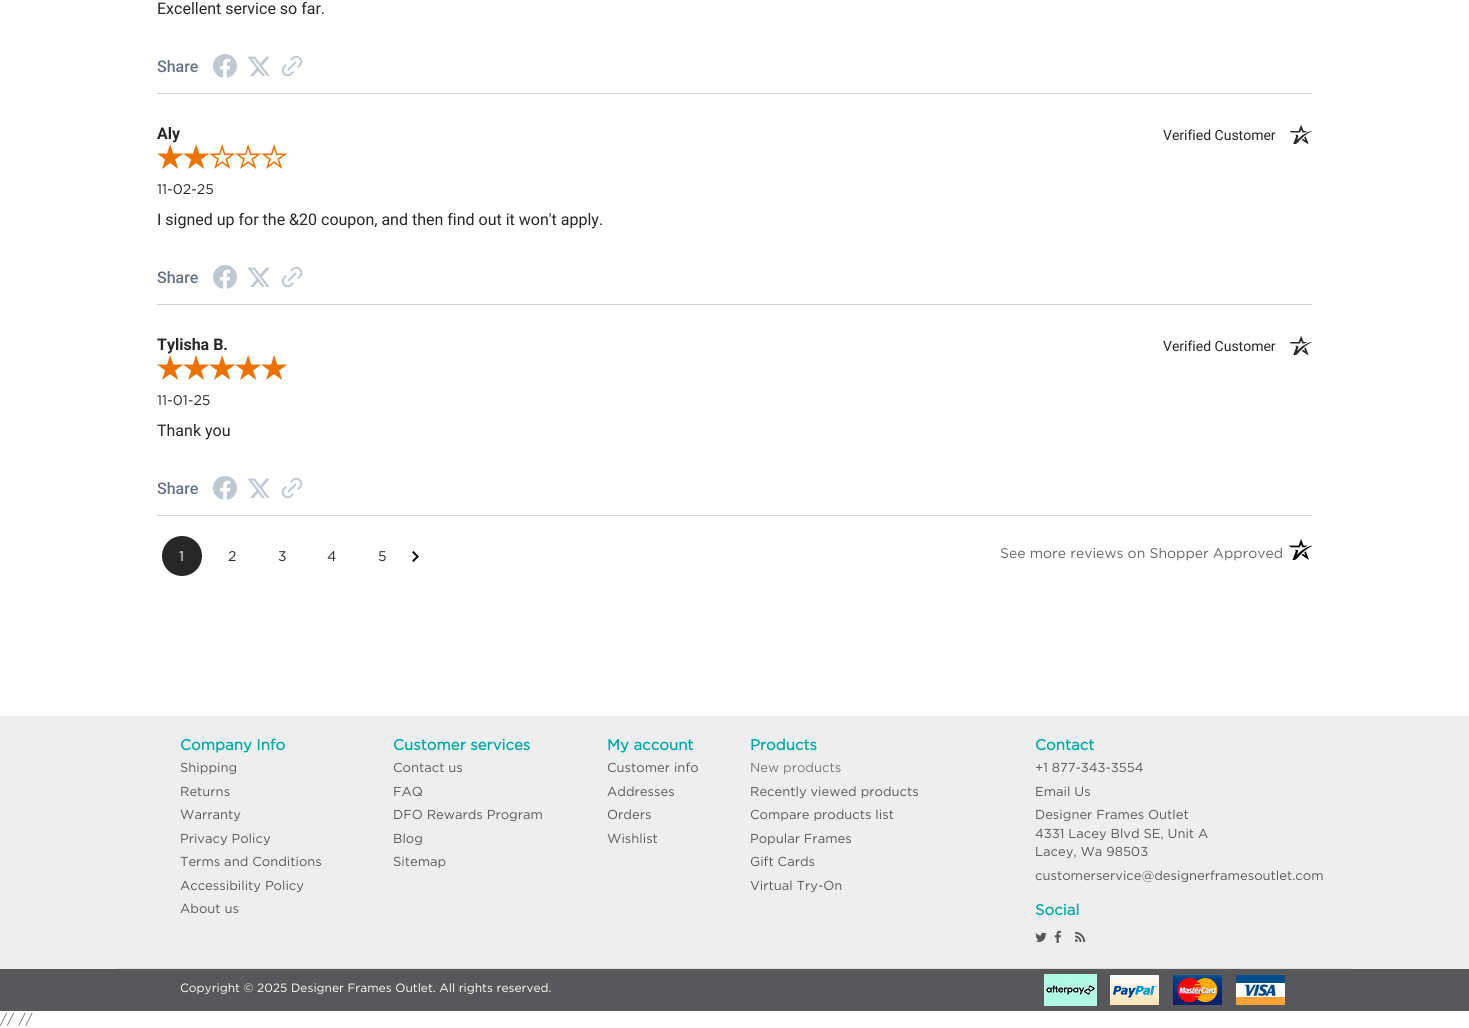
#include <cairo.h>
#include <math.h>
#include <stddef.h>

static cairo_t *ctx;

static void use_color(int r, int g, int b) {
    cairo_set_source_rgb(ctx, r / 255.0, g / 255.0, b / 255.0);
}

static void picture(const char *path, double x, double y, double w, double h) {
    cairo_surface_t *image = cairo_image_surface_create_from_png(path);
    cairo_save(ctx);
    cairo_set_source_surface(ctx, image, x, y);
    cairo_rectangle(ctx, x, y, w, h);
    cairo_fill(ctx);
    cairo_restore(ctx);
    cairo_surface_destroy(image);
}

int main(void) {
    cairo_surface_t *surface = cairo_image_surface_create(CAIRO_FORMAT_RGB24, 1469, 1028);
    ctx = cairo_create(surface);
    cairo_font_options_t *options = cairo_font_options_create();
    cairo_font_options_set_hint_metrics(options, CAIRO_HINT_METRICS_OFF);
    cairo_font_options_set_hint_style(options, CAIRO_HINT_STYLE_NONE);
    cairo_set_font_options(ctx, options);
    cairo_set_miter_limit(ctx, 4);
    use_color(255, 255, 255);
    cairo_paint(ctx);
    cairo_select_font_face(ctx, "Roboto", CAIRO_FONT_SLANT_NORMAL, CAIRO_FONT_WEIGHT_NORMAL);
    cairo_set_font_size(ctx, 16);
    use_color(39, 39, 39);
    cairo_move_to(ctx, 157, 14);
    cairo_show_text(ctx, "Excellent service so far.");
    cairo_select_font_face(ctx, "Roboto Medium", CAIRO_FONT_SLANT_NORMAL, CAIRO_FONT_WEIGHT_NORMAL);
    use_color(102, 112, 133);
    cairo_move_to(ctx, 157, 72);
    cairo_show_text(ctx, "Share");
    picture("img1.png", 213, 54, 24, 24);
    picture("img2.png", 247, 56, 23, 20);
    picture("img3.png", 281, 55, 22, 22);
    use_color(210, 210, 217);
    cairo_rectangle(ctx, 157, 93, 1155, 1);
    cairo_fill(ctx);
    cairo_select_font_face(ctx, "Roboto", CAIRO_FONT_SLANT_NORMAL, CAIRO_FONT_WEIGHT_BOLD);
    use_color(39, 39, 39);
    cairo_move_to(ctx, 157, 139);
    cairo_show_text(ctx, "Aly");
    cairo_select_font_face(ctx, "Roboto", CAIRO_FONT_SLANT_NORMAL, CAIRO_FONT_WEIGHT_NORMAL);
    cairo_set_font_size(ctx, 14);
    cairo_move_to(ctx, 1163, 140);
    cairo_show_text(ctx, "Verified Customer");
    picture("img4.png", 1290, 124, 22, 20);
    picture("img5.png", 157, 144, 26, 25);
    picture("img5.png", 183, 144, 26, 25);
    picture("img6.png", 209, 144, 26, 25);
    picture("img6.png", 235, 144, 26, 25);
    picture("img6.png", 261, 144, 26, 25);
    cairo_select_font_face(ctx, "Gotham", CAIRO_FONT_SLANT_NORMAL, CAIRO_FONT_WEIGHT_NORMAL);
    cairo_move_to(ctx, 157, 194);
    cairo_show_text(ctx, "11-02-25");
    cairo_select_font_face(ctx, "Roboto", CAIRO_FONT_SLANT_NORMAL, CAIRO_FONT_WEIGHT_NORMAL);
    cairo_set_font_size(ctx, 16);
    cairo_move_to(ctx, 157, 225);
    cairo_show_text(ctx, "I signed up for the &20 coupon, and then find out it won't apply.");
    cairo_select_font_face(ctx, "Roboto Medium", CAIRO_FONT_SLANT_NORMAL, CAIRO_FONT_WEIGHT_NORMAL);
    use_color(102, 112, 133);
    cairo_move_to(ctx, 157, 283);
    cairo_show_text(ctx, "Share");
    picture("img1.png", 213, 265, 24, 24);
    picture("img2.png", 247, 267, 23, 20);
    picture("img3.png", 281, 266, 22, 22);
    use_color(210, 210, 217);
    cairo_rectangle(ctx, 157, 304, 1155, 1);
    cairo_fill(ctx);
    cairo_select_font_face(ctx, "Roboto", CAIRO_FONT_SLANT_NORMAL, CAIRO_FONT_WEIGHT_BOLD);
    use_color(39, 39, 39);
    cairo_move_to(ctx, 157, 350);
    cairo_show_text(ctx, "Tylisha B.");
    cairo_select_font_face(ctx, "Roboto", CAIRO_FONT_SLANT_NORMAL, CAIRO_FONT_WEIGHT_NORMAL);
    cairo_set_font_size(ctx, 14);
    cairo_move_to(ctx, 1163, 351);
    cairo_show_text(ctx, "Verified Customer");
    picture("img4.png", 1290, 335, 22, 20);
    picture("img5.png", 157, 355, 26, 25);
    picture("img5.png", 183, 355, 26, 25);
    picture("img5.png", 209, 355, 26, 25);
    picture("img5.png", 235, 355, 26, 25);
    picture("img5.png", 261, 355, 26, 25);
    cairo_select_font_face(ctx, "Gotham", CAIRO_FONT_SLANT_NORMAL, CAIRO_FONT_WEIGHT_NORMAL);
    cairo_move_to(ctx, 157, 405);
    cairo_show_text(ctx, "11-01-25");
    cairo_select_font_face(ctx, "Roboto", CAIRO_FONT_SLANT_NORMAL, CAIRO_FONT_WEIGHT_NORMAL);
    cairo_set_font_size(ctx, 16);
    cairo_move_to(ctx, 157, 436);
    cairo_show_text(ctx, "Thank you");
    cairo_select_font_face(ctx, "Roboto Medium", CAIRO_FONT_SLANT_NORMAL, CAIRO_FONT_WEIGHT_NORMAL);
    use_color(102, 112, 133);
    cairo_move_to(ctx, 157, 494);
    cairo_show_text(ctx, "Share");
    picture("img1.png", 213, 476, 24, 24);
    picture("img2.png", 247, 478, 23, 20);
    picture("img3.png", 281, 477, 22, 22);
    use_color(210, 210, 217);
    cairo_rectangle(ctx, 157, 515, 1155, 1);
    cairo_fill(ctx);
    use_color(39, 39, 39);
    cairo_arc(ctx, 182, 556, 20, 0, 2 * M_PI);
    cairo_fill(ctx);
    cairo_select_font_face(ctx, "Gotham", CAIRO_FONT_SLANT_NORMAL, CAIRO_FONT_WEIGHT_NORMAL);
    cairo_set_font_size(ctx, 14);
    use_color(255, 255, 255);
    cairo_move_to(ctx, 179, 561);
    cairo_show_text(ctx, "1");
    use_color(39, 39, 39);
    cairo_move_to(ctx, 228, 561);
    cairo_show_text(ctx, "2");
    cairo_move_to(ctx, 278, 561);
    cairo_show_text(ctx, "3");
    cairo_move_to(ctx, 327, 561);
    cairo_show_text(ctx, "4");
    cairo_move_to(ctx, 378, 561);
    cairo_show_text(ctx, "5");
    picture("img7.png", 412, 551, 7, 11);
    use_color(102, 102, 102);
    cairo_move_to(ctx, 1000, 558);
    cairo_show_text(ctx, "See more reviews on Shopper Approved");
    picture("img8.png", 1288, 539, 24, 21);
    use_color(238, 238, 238);
    cairo_rectangle(ctx, 0, 716, 1469, 253);
    cairo_fill(ctx);
    use_color(221, 221, 221);
    cairo_rectangle(ctx, 117, 968, 1235, 1);
    cairo_fill(ctx);
    cairo_select_font_face(ctx, "Gotham", CAIRO_FONT_SLANT_NORMAL, CAIRO_FONT_WEIGHT_BOLD);
    cairo_set_font_size(ctx, 15);
    use_color(0, 169, 165);
    cairo_move_to(ctx, 180, 750);
    cairo_show_text(ctx, "Company Info");
    cairo_select_font_face(ctx, "Gotham", CAIRO_FONT_SLANT_NORMAL, CAIRO_FONT_WEIGHT_NORMAL);
    cairo_set_font_size(ctx, 13);
    use_color(88, 88, 90);
    cairo_move_to(ctx, 180, 772);
    cairo_show_text(ctx, "Shipping");
    cairo_move_to(ctx, 180, 796);
    cairo_show_text(ctx, "Returns");
    cairo_move_to(ctx, 180, 819);
    cairo_show_text(ctx, "Warranty");
    cairo_move_to(ctx, 180, 843);
    cairo_show_text(ctx, "Privacy Policy");
    cairo_move_to(ctx, 180, 866);
    cairo_show_text(ctx, "Terms and Conditions");
    cairo_move_to(ctx, 180, 890);
    cairo_show_text(ctx, "Accessibility Policy");
    cairo_move_to(ctx, 180, 913);
    cairo_show_text(ctx, "About us");
    cairo_select_font_face(ctx, "Gotham", CAIRO_FONT_SLANT_NORMAL, CAIRO_FONT_WEIGHT_BOLD);
    cairo_set_font_size(ctx, 15);
    use_color(0, 169, 165);
    cairo_move_to(ctx, 393, 750);
    cairo_show_text(ctx, "Customer services");
    cairo_select_font_face(ctx, "Gotham", CAIRO_FONT_SLANT_NORMAL, CAIRO_FONT_WEIGHT_NORMAL);
    cairo_set_font_size(ctx, 13);
    use_color(88, 88, 90);
    cairo_move_to(ctx, 393, 772);
    cairo_show_text(ctx, "Contact us");
    cairo_move_to(ctx, 393, 796);
    cairo_show_text(ctx, "FAQ");
    cairo_move_to(ctx, 393, 819);
    cairo_show_text(ctx, "DFO Rewards Program");
    cairo_move_to(ctx, 393, 843);
    cairo_show_text(ctx, "Blog");
    cairo_move_to(ctx, 393, 866);
    cairo_show_text(ctx, "Sitemap");
    cairo_select_font_face(ctx, "Gotham", CAIRO_FONT_SLANT_NORMAL, CAIRO_FONT_WEIGHT_BOLD);
    cairo_set_font_size(ctx, 15);
    use_color(0, 169, 165);
    cairo_move_to(ctx, 607, 750);
    cairo_show_text(ctx, "My account");
    cairo_select_font_face(ctx, "Gotham", CAIRO_FONT_SLANT_NORMAL, CAIRO_FONT_WEIGHT_NORMAL);
    cairo_set_font_size(ctx, 13);
    use_color(88, 88, 90);
    cairo_move_to(ctx, 607, 772);
    cairo_show_text(ctx, "Customer info");
    cairo_move_to(ctx, 607, 796);
    cairo_show_text(ctx, "Addresses");
    cairo_move_to(ctx, 607, 819);
    cairo_show_text(ctx, "Orders");
    cairo_move_to(ctx, 607, 843);
    cairo_show_text(ctx, "Wishlist");
    cairo_select_font_face(ctx, "Gotham", CAIRO_FONT_SLANT_NORMAL, CAIRO_FONT_WEIGHT_BOLD);
    cairo_set_font_size(ctx, 15);
    use_color(0, 169, 165);
    cairo_move_to(ctx, 750, 750);
    cairo_show_text(ctx, "Products");
    cairo_select_font_face(ctx, "Gotham", CAIRO_FONT_SLANT_NORMAL, CAIRO_FONT_WEIGHT_NORMAL);
    cairo_set_font_size(ctx, 13);
    use_color(119, 119, 119);
    cairo_move_to(ctx, 750, 772);
    cairo_show_text(ctx, "New products");
    use_color(88, 88, 90);
    cairo_move_to(ctx, 750, 796);
    cairo_show_text(ctx, "Recently viewed products");
    cairo_move_to(ctx, 750, 819);
    cairo_show_text(ctx, "Compare products list");
    cairo_move_to(ctx, 750, 843);
    cairo_show_text(ctx, "Popular Frames");
    cairo_move_to(ctx, 750, 866);
    cairo_show_text(ctx, "Gift Cards");
    cairo_move_to(ctx, 750, 890);
    cairo_show_text(ctx, "Virtual Try-On");
    cairo_select_font_face(ctx, "Gotham", CAIRO_FONT_SLANT_NORMAL, CAIRO_FONT_WEIGHT_BOLD);
    cairo_set_font_size(ctx, 15);
    use_color(0, 169, 165);
    cairo_move_to(ctx, 1035, 750);
    cairo_show_text(ctx, "Contact");
    cairo_select_font_face(ctx, "Gotham", CAIRO_FONT_SLANT_NORMAL, CAIRO_FONT_WEIGHT_NORMAL);
    cairo_set_font_size(ctx, 13);
    use_color(88, 88, 90);
    cairo_move_to(ctx, 1035, 772);
    cairo_show_text(ctx, "+1 877-343-3554");
    cairo_move_to(ctx, 1035, 796);
    cairo_show_text(ctx, "Email Us");
    cairo_move_to(ctx, 1035, 819);
    cairo_show_text(ctx, "Designer Frames Outlet");
    cairo_move_to(ctx, 1035, 838);
    cairo_show_text(ctx, "4331 Lacey Blvd SE, Unit A");
    cairo_move_to(ctx, 1035, 856);
    cairo_show_text(ctx, "Lacey, Wa 98503");
    cairo_move_to(ctx, 1035, 880);
    cairo_show_text(ctx, "customerservice@designerframesoutlet.com");
    cairo_select_font_face(ctx, "Gotham", CAIRO_FONT_SLANT_NORMAL, CAIRO_FONT_WEIGHT_BOLD);
    cairo_set_font_size(ctx, 15);
    use_color(0, 169, 165);
    cairo_move_to(ctx, 1035, 915);
    cairo_show_text(ctx, "Social");
    picture("img9.png", 1035, 932, 12, 10);
    picture("img10.png", 1054, 930, 7, 13);
    picture("img11.png", 1075, 931, 11, 11);
    use_color(88, 88, 90);
    cairo_rectangle(ctx, 0, 969, 1469, 42);
    cairo_fill(ctx);
    cairo_select_font_face(ctx, "Gotham", CAIRO_FONT_SLANT_NORMAL, CAIRO_FONT_WEIGHT_NORMAL);
    cairo_set_font_size(ctx, 12);
    use_color(255, 255, 255);
    cairo_move_to(ctx, 180, 992);
    cairo_show_text(ctx, "Copyright © 2025 Designer Frames Outlet. All rights reserved.");
    picture("img12.png", 1044, 974, 53, 32);
    picture("img13.png", 1110, 975, 49, 30);
    picture("img14.png", 1173, 975, 49, 30);
    picture("img15.png", 1236, 975, 49, 30);
    cairo_set_font_size(ctx, 14);
    use_color(119, 119, 119);
    cairo_move_to(ctx, 0, 1024);
    cairo_show_text(ctx, "// //");
    cairo_surface_write_to_png(surface, "result.png");
    cairo_font_options_destroy(options);
    cairo_destroy(ctx);
    cairo_surface_destroy(surface);
    return 0;
}
